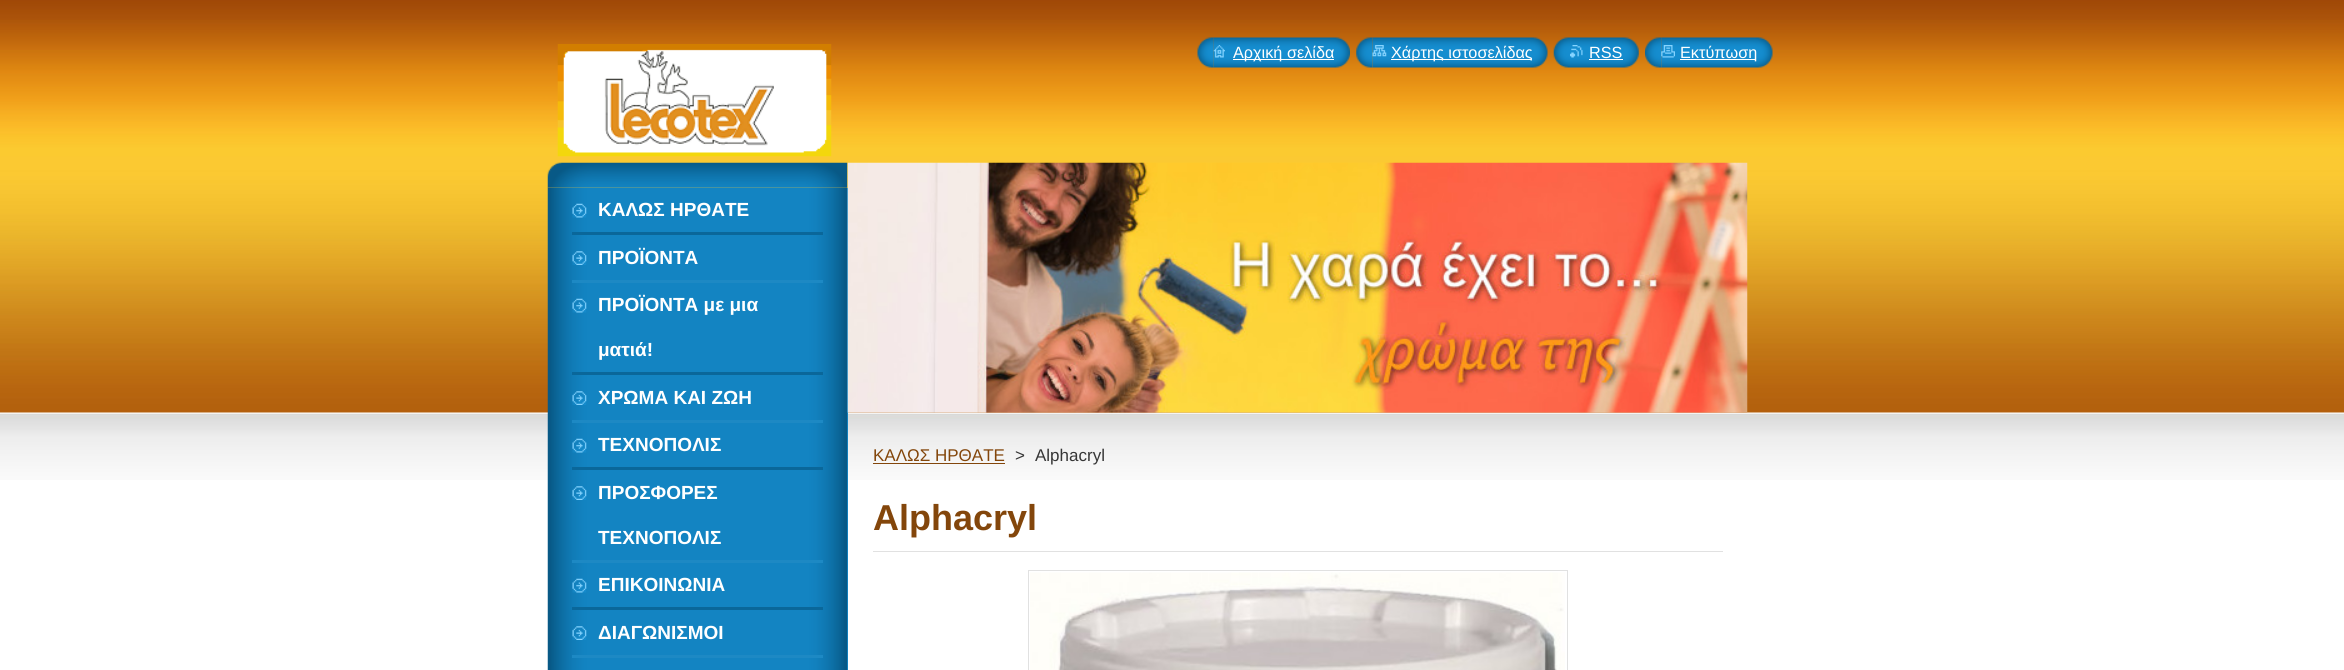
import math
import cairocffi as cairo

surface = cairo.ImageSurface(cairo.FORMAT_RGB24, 2344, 670)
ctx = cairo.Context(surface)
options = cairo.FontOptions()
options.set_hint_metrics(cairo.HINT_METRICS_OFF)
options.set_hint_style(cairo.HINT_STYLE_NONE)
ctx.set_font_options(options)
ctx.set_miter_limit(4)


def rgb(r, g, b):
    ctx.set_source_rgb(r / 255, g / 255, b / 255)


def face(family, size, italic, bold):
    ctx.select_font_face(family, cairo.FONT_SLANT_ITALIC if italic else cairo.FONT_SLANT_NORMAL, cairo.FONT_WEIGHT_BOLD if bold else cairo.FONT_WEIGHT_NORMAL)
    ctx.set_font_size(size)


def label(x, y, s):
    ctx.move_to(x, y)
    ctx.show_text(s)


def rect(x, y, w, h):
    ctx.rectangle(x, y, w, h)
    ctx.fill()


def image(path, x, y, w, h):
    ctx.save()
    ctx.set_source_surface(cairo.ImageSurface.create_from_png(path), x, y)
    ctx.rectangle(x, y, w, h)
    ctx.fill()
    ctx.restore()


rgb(255, 255, 255)
ctx.paint()
image('image0.png', 0, 0, 2344, 480)
image('image1.png', 557, 44, 275, 113)
image('image2.png', 1197, 37, 17, 31)
image('image3.png', 1213, 37, 137, 31)
image('image4.png', 1213, 45, 12, 13)
rgb(255, 255, 255)
rect(1233, 59, 101, 1)
face('Liberation Sans', 16.25, 0, 0)
label(1233, 58, 'Αρχική σελίδα')
image('image5.png', 1356, 37, 17, 31)
image('image6.png', 1372, 37, 176, 31)
image('image7.png', 1372, 45, 15, 12)
rect(1391, 59, 140, 1)
label(1391, 58, 'Χάρτης ιστοσελίδας')
image('image8.png', 1553, 37, 17, 31)
image('image9.png', 1570, 37, 69, 31)
image('image10.png', 1570, 45, 13, 13)
label(1589, 58, 'RSS')
rect(1589, 59, 34, 1)
image('image11.png', 1645, 37, 17, 31)
image('image12.png', 1661, 37, 112, 31)
image('image13.png', 1661, 45, 14, 13)
rect(1680, 59, 76, 1)
label(1680, 58, 'Εκτύπωση')
image('image14.png', 547, 162, 301, 26)
rgb(21, 141, 207)
rect(847, 188, 1, 482)
image('image15.png', 547, 187, 301, 483)
rgb(10, 103, 154)
rect(572, 232, 251, 3)
image('image16.png', 572, 203, 15, 15)
face('Liberation Sans', 19, 0, 1)
rgb(255, 255, 255)
label(598, 216, 'ΚΑΛΩΣ ΗΡΘΑΤΕ')
rgb(29, 137, 196)
rect(572, 280, 251, 3)
image('image17.png', 572, 251, 15, 14)
rgb(255, 255, 255)
label(598, 264, 'ΠΡΟΪΟΝΤΑ')
rgb(10, 103, 154)
rect(572, 372, 251, 3)
image('image16.png', 572, 298, 15, 15)
rgb(255, 255, 255)
label(598, 311, 'ΠΡΟΪΟΝΤΑ με μια')
label(598, 356, 'ματιά!')
rgb(29, 137, 196)
rect(572, 420, 251, 3)
image('image17.png', 572, 391, 15, 14)
rgb(255, 255, 255)
label(598, 404, 'ΧΡΩΜΑ ΚΑΙ ΖΩΗ')
rgb(10, 103, 154)
rect(572, 467, 251, 3)
image('image16.png', 572, 438, 15, 15)
rgb(255, 255, 255)
label(598, 451, 'ΤΕΧΝΟΠΟΛΙΣ')
rgb(29, 137, 196)
rect(572, 560, 251, 3)
image('image17.png', 572, 486, 15, 14)
rgb(255, 255, 255)
label(598, 499, 'ΠΡΟΣΦΟΡΕΣ')
label(598, 544, 'ΤΕΧΝΟΠΟΛΙΣ')
rgb(10, 103, 154)
rect(572, 607, 251, 3)
image('image16.png', 572, 578, 15, 15)
rgb(255, 255, 255)
label(598, 591, 'ΕΠΙΚΟΙΝΩΝΙΑ')
rgb(29, 137, 196)
rect(572, 655, 251, 3)
image('image17.png', 572, 626, 15, 14)
rgb(255, 255, 255)
label(598, 639, 'ΔΙΑΓΩΝΙΣΜΟΙ')
image('image18.png', 847, 162, 901, 251)
face('Liberation Sans', 17, 0, 0)
rgb(131, 70, 11)
label(873, 461, 'ΚΑΛΩΣ ΗΡΘΑΤΕ')
rect(873, 463, 132, 1)
rgb(54, 54, 54)
label(1015, 461, '>')
label(1035, 461, 'Alphacryl')
rgb(225, 225, 225)
rect(873, 551, 850, 1)
face('Liberation Sans', 36, 0, 1)
rgb(131, 70, 11)
label(873, 530, 'Alphacryl')
ctx.rectangle(1028.5, 570.5, 539, 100)
rgb(225, 225, 225)
ctx.set_line_width(1)
ctx.stroke()
image('image19.png', 1030, 572, 535, 98)
surface.write_to_png('render.png')
